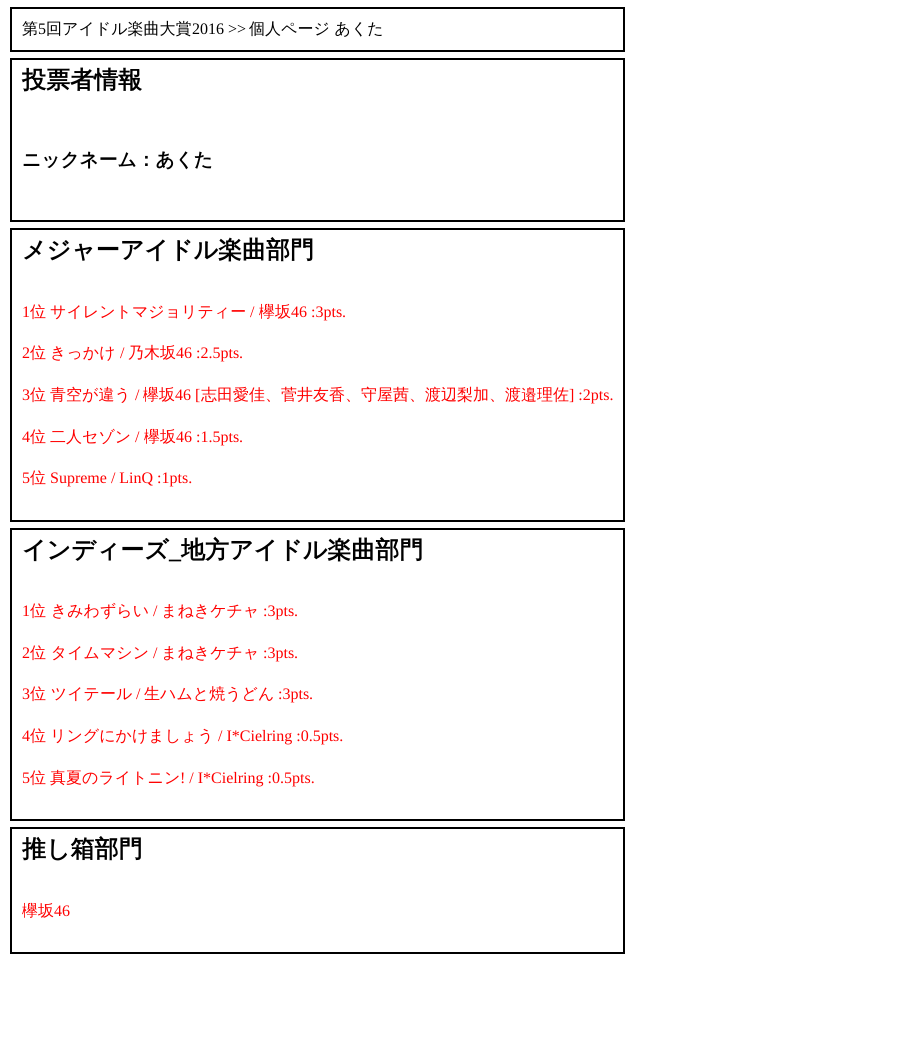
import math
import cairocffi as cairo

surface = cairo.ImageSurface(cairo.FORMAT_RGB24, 919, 1052)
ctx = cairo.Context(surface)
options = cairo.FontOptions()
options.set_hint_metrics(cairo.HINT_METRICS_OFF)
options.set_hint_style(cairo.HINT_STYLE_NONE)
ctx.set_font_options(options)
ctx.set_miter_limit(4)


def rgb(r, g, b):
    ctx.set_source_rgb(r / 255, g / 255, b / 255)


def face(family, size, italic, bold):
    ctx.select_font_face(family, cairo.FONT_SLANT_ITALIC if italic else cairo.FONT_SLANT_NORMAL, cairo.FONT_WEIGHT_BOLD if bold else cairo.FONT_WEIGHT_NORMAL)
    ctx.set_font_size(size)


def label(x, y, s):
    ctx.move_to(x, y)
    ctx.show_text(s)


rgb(255, 255, 255)
ctx.paint()
ctx.rectangle(10.5, 7.5, 614, 44)
rgb(0, 0, 0)
ctx.set_line_width(1)
ctx.stroke()
ctx.rectangle(11.5, 8.5, 612, 42)
ctx.stroke()
face('WenQuanYi Zen Hei Medium', 16, 0, 0)
label(22, 34, '第')
face('Liberation Serif', 16, 0, 0)
label(38, 34, '5')
face('WenQuanYi Zen Hei Medium', 16, 0, 0)
label(46, 34, '回アイドル楽曲大賞')
face('Liberation Serif', 16, 0, 0)
label(192, 34, '2016 >>')
face('WenQuanYi Zen Hei Medium', 16, 0, 0)
label(249, 34, '個人ページ あくた')
ctx.rectangle(10.5, 58.5, 614, 163)
ctx.stroke()
ctx.rectangle(11.5, 59.5, 612, 161)
ctx.stroke()
face('WenQuanYi Zen Hei', 24, 0, 1)
label(22, 88, '投票者情報')
face('WenQuanYi Zen Hei', 18.75, 0, 1)
label(22, 166, 'ニックネーム：あくた')
ctx.rectangle(10.5, 228.5, 614, 293)
ctx.stroke()
ctx.rectangle(11.5, 229.5, 612, 291)
ctx.stroke()
face('WenQuanYi Zen Hei', 24, 0, 1)
label(22, 258, 'メジャーアイドル楽曲部門')
face('Liberation Serif', 16, 0, 0)
rgb(255, 0, 0)
label(22, 317, '1')
face('WenQuanYi Zen Hei Medium', 16, 0, 0)
label(30, 317, '位')
label(50, 317, 'サイレントマジョリティー')
face('Liberation Serif', 16, 0, 0)
label(250, 317, '/')
face('WenQuanYi Zen Hei Medium', 16, 0, 0)
label(259, 317, '欅坂')
face('Liberation Serif', 16, 0, 0)
label(291, 317, '46 :3pts.')
label(22, 358, '2')
face('WenQuanYi Zen Hei Medium', 16, 0, 0)
label(30, 358, '位')
label(50, 358, 'きっかけ')
face('Liberation Serif', 16, 0, 0)
label(120, 358, '/')
face('WenQuanYi Zen Hei Medium', 16, 0, 0)
label(128, 358, '乃木坂')
face('Liberation Serif', 16, 0, 0)
label(176, 358, '46 :2.5pts.')
label(22, 400, '3')
face('WenQuanYi Zen Hei Medium', 16, 0, 0)
label(30, 400, '位')
label(50, 400, '青空が違う')
face('Liberation Serif', 16, 0, 0)
label(135, 400, '/')
face('WenQuanYi Zen Hei Medium', 16, 0, 0)
label(143, 400, '欅坂')
face('Liberation Serif', 16, 0, 0)
label(175, 400, '46 [')
face('WenQuanYi Zen Hei Medium', 16, 0, 0)
label(201, 400, '志田愛佳、菅井友香、守屋茜、渡辺梨加、渡邉理佐')
face('Liberation Serif', 16, 0, 0)
label(569, 400, '] :2pts.')
label(22, 442, '4')
face('WenQuanYi Zen Hei Medium', 16, 0, 0)
label(30, 442, '位')
label(50, 442, '二人セゾン')
face('Liberation Serif', 16, 0, 0)
label(135, 442, '/')
face('WenQuanYi Zen Hei Medium', 16, 0, 0)
label(144, 442, '欅坂')
face('Liberation Serif', 16, 0, 0)
label(176, 442, '46 :1.5pts.')
label(22, 483, '5')
face('WenQuanYi Zen Hei Medium', 16, 0, 0)
label(30, 483, '位')
face('Liberation Serif', 16, 0, 0)
label(50, 483, 'Supreme / LinQ :1pts.')
ctx.rectangle(10.5, 528.5, 614, 292)
rgb(0, 0, 0)
ctx.stroke()
ctx.rectangle(11.5, 529.5, 612, 290)
ctx.stroke()
face('WenQuanYi Zen Hei', 24, 0, 1)
label(22, 558, 'インディーズ')
face('Liberation Serif', 24, 0, 1)
label(169, 558, '_')
face('WenQuanYi Zen Hei', 24, 0, 1)
label(181, 558, '地方アイドル楽曲部門')
face('Liberation Serif', 16, 0, 0)
rgb(255, 0, 0)
label(22, 616, '1')
face('WenQuanYi Zen Hei Medium', 16, 0, 0)
label(30, 616, '位 きみわずらい')
face('Liberation Serif', 16, 0, 0)
label(153, 616, '/')
face('WenQuanYi Zen Hei Medium', 16, 0, 0)
label(161, 616, 'まねきケチャ')
face('Liberation Serif', 16, 0, 0)
label(263, 616, ':3pts.')
label(22, 658, '2')
face('WenQuanYi Zen Hei Medium', 16, 0, 0)
label(30, 658, '位 タイムマシン')
face('Liberation Serif', 16, 0, 0)
label(153, 658, '/')
face('WenQuanYi Zen Hei Medium', 16, 0, 0)
label(161, 658, 'まねきケチャ')
face('Liberation Serif', 16, 0, 0)
label(263, 658, ':3pts.')
label(22, 699, '3')
face('WenQuanYi Zen Hei Medium', 16, 0, 0)
label(30, 699, '位 ツイテール')
face('Liberation Serif', 16, 0, 0)
label(136, 699, '/')
face('WenQuanYi Zen Hei Medium', 16, 0, 0)
label(144, 699, '生ハムと焼うどん')
face('Liberation Serif', 16, 0, 0)
label(278, 699, ':3pts.')
label(22, 741, '4')
face('WenQuanYi Zen Hei Medium', 16, 0, 0)
label(30, 741, '位')
label(50, 741, 'リングにかけましょう')
face('Liberation Serif', 16, 0, 0)
label(218, 741, '/ I*Cielring :0.5pts.')
label(22, 783, '5')
face('WenQuanYi Zen Hei Medium', 16, 0, 0)
label(30, 783, '位')
label(50, 783, '真夏のライトニン')
face('Liberation Serif', 16, 0, 0)
label(180, 783, '! / I*Cielring :0.5pts.')
ctx.rectangle(10.5, 827.5, 614, 126)
rgb(0, 0, 0)
ctx.stroke()
ctx.rectangle(11.5, 828.5, 612, 124)
ctx.stroke()
face('WenQuanYi Zen Hei', 24, 0, 1)
label(22, 857, '推し箱部門')
face('WenQuanYi Zen Hei Medium', 16, 0, 0)
rgb(255, 0, 0)
label(22, 916, '欅坂')
face('Liberation Serif', 16, 0, 0)
label(54, 916, '46')
surface.write_to_png('render.png')
